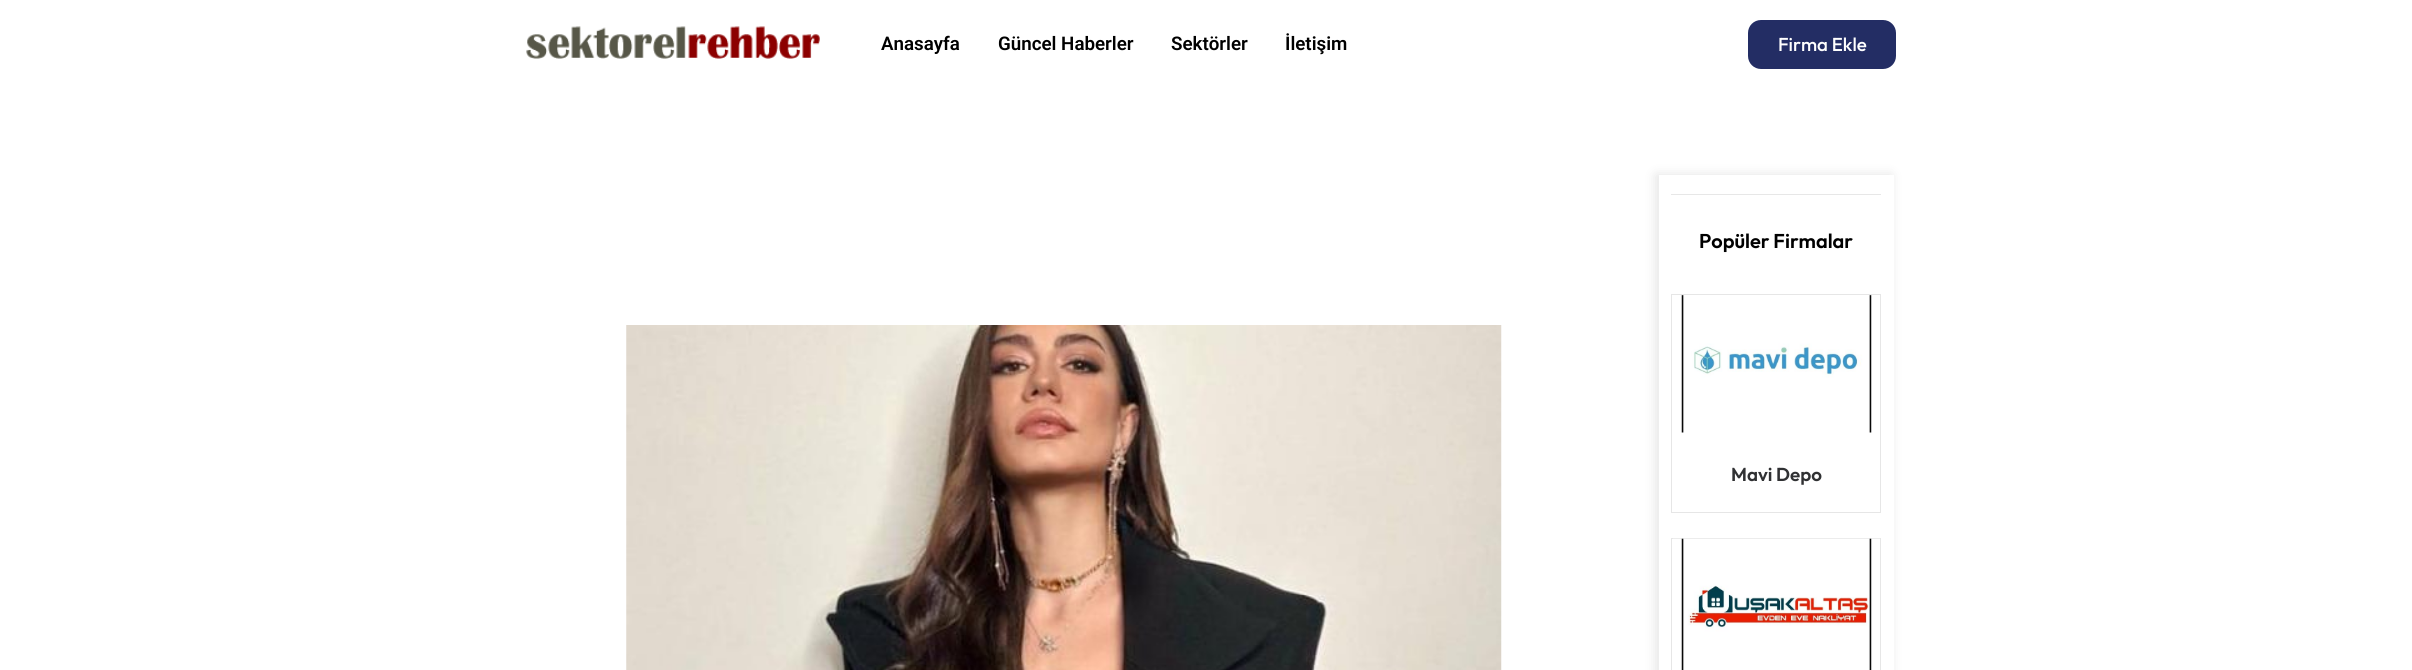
import math
import cairocffi as cairo

surface = cairo.ImageSurface(cairo.FORMAT_RGB24, 2412, 670)
ctx = cairo.Context(surface)
options = cairo.FontOptions()
options.set_hint_metrics(cairo.HINT_METRICS_OFF)
options.set_hint_style(cairo.HINT_STYLE_NONE)
ctx.set_font_options(options)
ctx.set_miter_limit(4)


def rgb(r, g, b):
    ctx.set_source_rgb(r / 255, g / 255, b / 255)


def face(family, size, italic, bold):
    ctx.select_font_face(family, cairo.FONT_SLANT_ITALIC if italic else cairo.FONT_SLANT_NORMAL, cairo.FONT_WEIGHT_BOLD if bold else cairo.FONT_WEIGHT_NORMAL)
    ctx.set_font_size(size)


def label(x, y, s):
    ctx.move_to(x, y)
    ctx.show_text(s)


def rect(x, y, w, h):
    ctx.rectangle(x, y, w, h)
    ctx.fill()


def rrect(x, y, w, h, r):
    ctx.new_sub_path()
    for i, (u, v) in enumerate([(x + w - r, y + h - r), (x + r, y + h - r), (x + r, y + r), (x + w - r, y + r)]):
        ctx.arc(u, v, r, i * math.pi / 2, (i + 1) * math.pi / 2)
    ctx.close_path()


def soft_shadow(x, y, w, h, r, blur, alpha):
    ctx.push_group_with_content(cairo.CONTENT_ALPHA)
    ctx.set_operator(cairo.OPERATOR_SOURCE)
    for i in range(15, -16, -2):
        e = blur * i / 6
        if min(w, h) + 2 * e > 0:
            ctx.set_source_rgba(0, 0, 0, alpha * math.erfc((i - 1) / 8.5) / 2)
            rrect(x - e, y - e, w + 2 * e, h + 2 * e, max(0, min(r + e + blur * .6, min(w, h) / 2 + e)))
            ctx.fill()
    ctx.mask(ctx.pop_group())


def image(path, x, y, w, h):
    ctx.save()
    ctx.set_source_surface(cairo.ImageSurface.create_from_png(path), x, y)
    ctx.rectangle(x, y, w, h)
    ctx.fill()
    ctx.restore()


rgb(255, 255, 255)
ctx.paint()
image('image0.png', 526, 26, 294, 33)
face('Roboto SemiBold', 18.75, 0, 0)
rgb(0, 0, 0)
label(881, 50, 'Anasayfa')
label(998, 50, 'Güncel Haberler')
label(1171, 50, 'Sektörler')
label(1285, 50, 'İletişim')
rgb(35, 45, 100)
rrect(1748, 20, 148, 49, 13)
ctx.fill()
face('Outfit Medium', 18.75, 0, 0)
rgb(255, 255, 255)
label(1778, 51, 'Firma Ekle')
image('image1.png', 626, 325, 876, 345)
ctx.save()
ctx.set_fill_rule(cairo.FILL_RULE_EVEN_ODD)
ctx.new_path()
ctx.move_to(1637, 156)
ctx.line_to(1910, 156)
ctx.line_to(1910, 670)
ctx.line_to(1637, 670)
ctx.close_path()
ctx.move_to(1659, 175)
ctx.line_to(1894, 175)
ctx.line_to(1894, 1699)
ctx.line_to(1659, 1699)
ctx.close_path()
ctx.clip()
rgb(0, 0, 0)
soft_shadow(1656, 175, 235, 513, 0, 6, 0.11)
ctx.restore()
rgb(231, 231, 231)
rect(1671, 194, 210, 1)
face('Outfit SemiBold', 20, 0, 0)
rgb(0, 0, 0)
label(1699, 248, 'Popüler Firmalar')
ctx.rectangle(1671.5, 294.5, 209, 218)
rgb(230, 230, 230)
ctx.set_line_width(1)
ctx.stroke()
image('image2.png', 1681, 295, 191, 138)
face('Outfit SemiBold', 18.75, 0, 0)
rgb(48, 49, 51)
label(1731, 481, 'Mavi Depo')
ctx.rectangle(1671.5, 538.5, 209, 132)
rgb(230, 230, 230)
ctx.stroke()
image('image3.png', 1673, 538, 207, 132)
surface.write_to_png('render.png')
